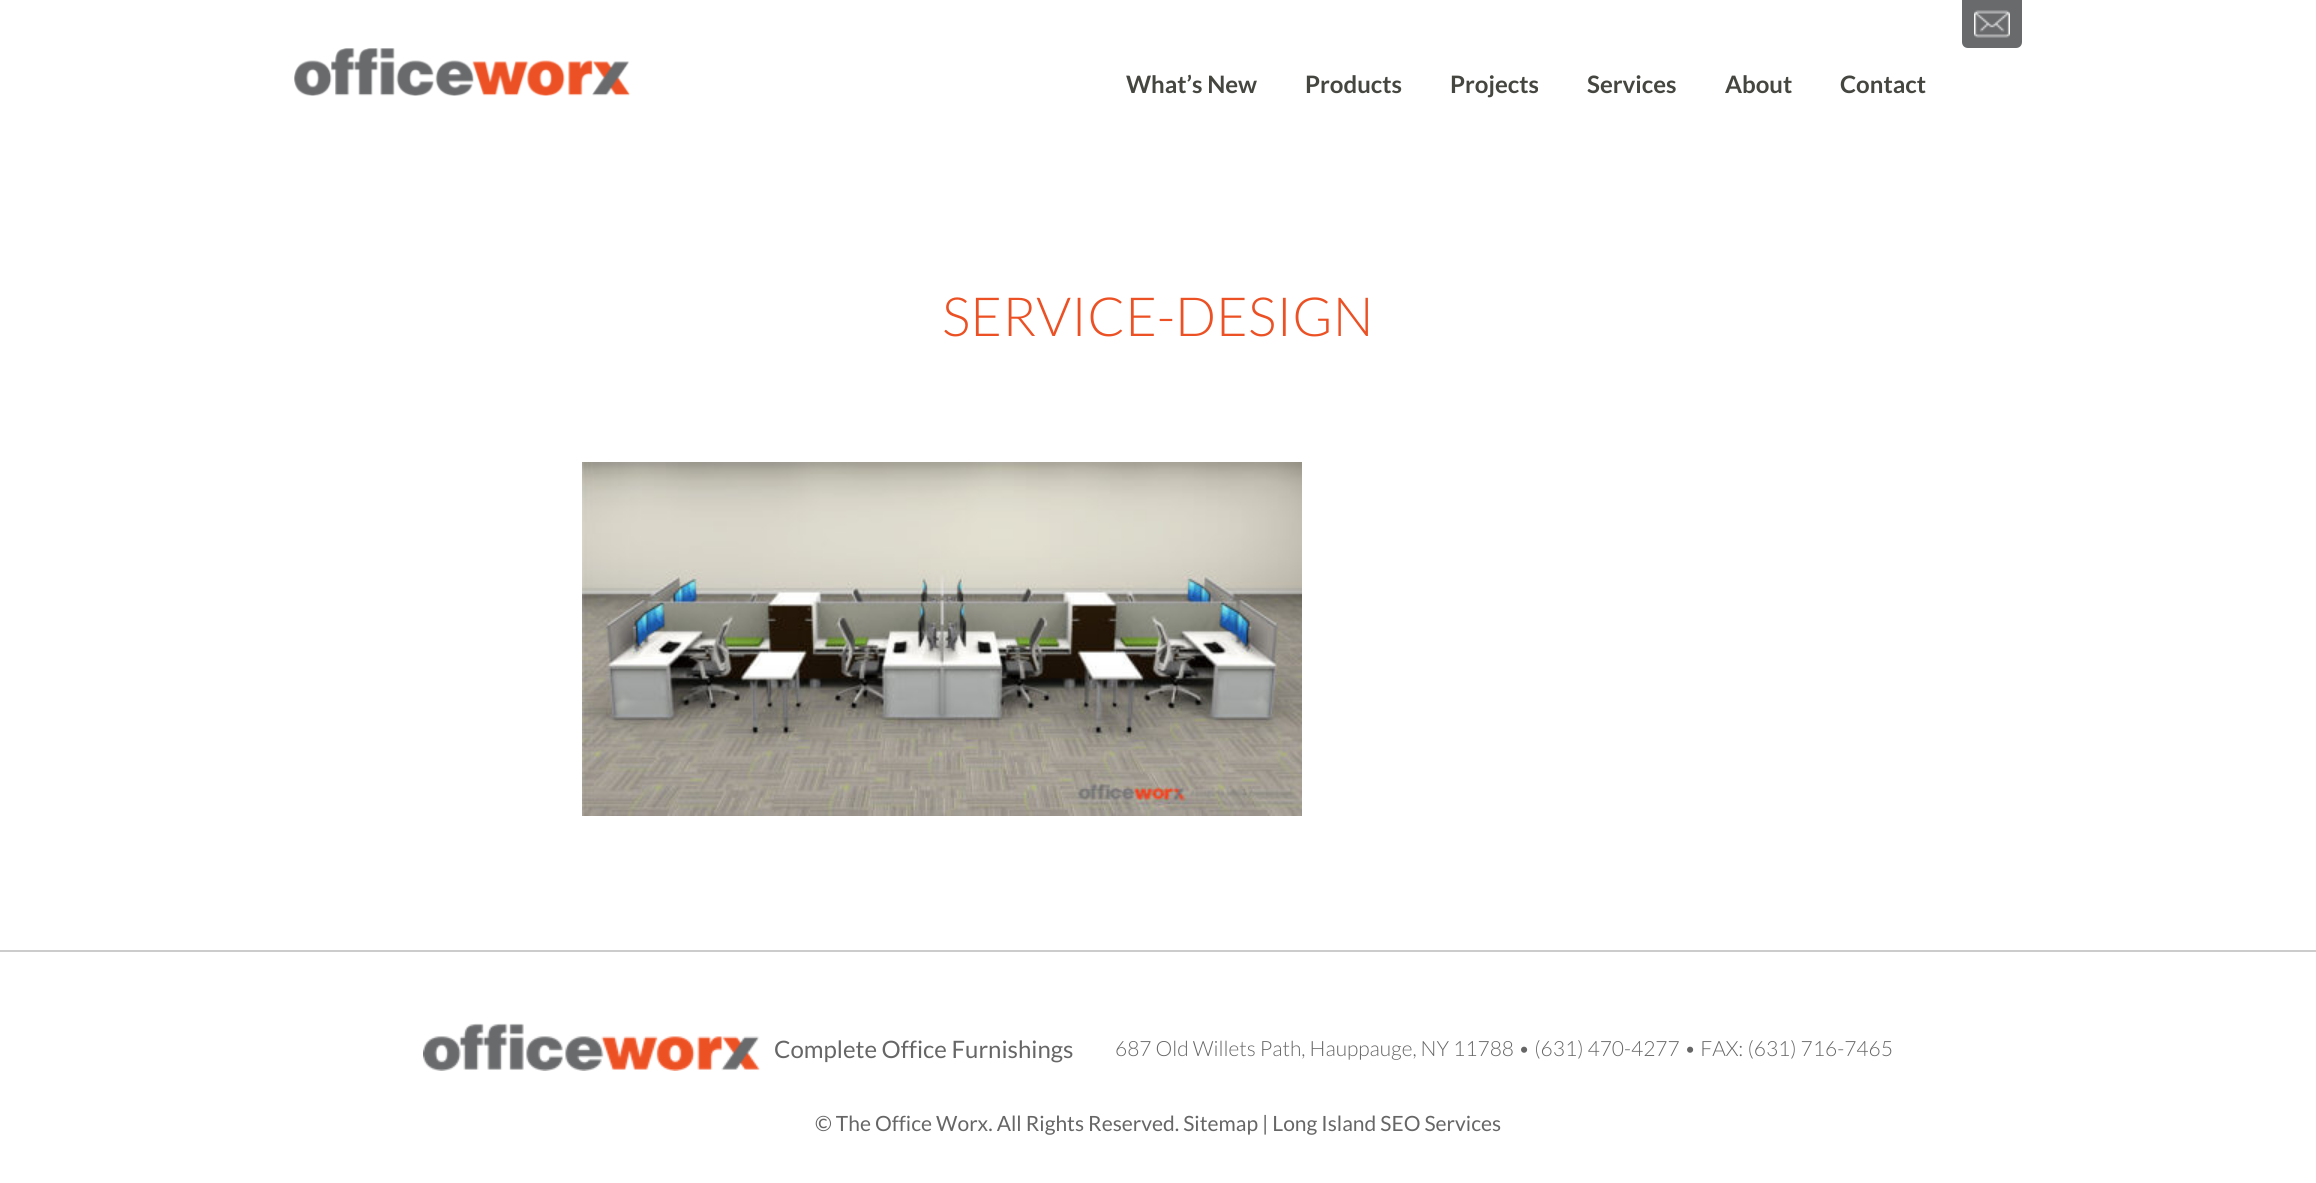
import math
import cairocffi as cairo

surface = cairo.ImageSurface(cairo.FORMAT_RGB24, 2316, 1183)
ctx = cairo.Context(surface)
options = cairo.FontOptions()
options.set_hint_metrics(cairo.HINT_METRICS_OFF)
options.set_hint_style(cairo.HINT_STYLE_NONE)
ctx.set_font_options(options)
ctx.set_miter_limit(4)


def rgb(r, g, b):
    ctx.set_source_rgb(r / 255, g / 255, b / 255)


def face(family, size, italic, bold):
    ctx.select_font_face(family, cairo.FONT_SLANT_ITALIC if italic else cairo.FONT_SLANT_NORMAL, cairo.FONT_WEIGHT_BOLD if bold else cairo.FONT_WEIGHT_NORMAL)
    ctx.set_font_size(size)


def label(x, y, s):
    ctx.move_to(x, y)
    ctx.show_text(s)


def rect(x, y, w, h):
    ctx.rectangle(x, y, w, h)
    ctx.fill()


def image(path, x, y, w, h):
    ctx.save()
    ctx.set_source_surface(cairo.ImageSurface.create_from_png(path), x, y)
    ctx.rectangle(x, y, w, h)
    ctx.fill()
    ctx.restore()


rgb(255, 255, 255)
ctx.paint()
rgb(105, 106, 108)
ctx.new_path()
ctx.move_to(1962, 0)
ctx.line_to(2022, 0)
ctx.line_to(2022, 42)
ctx.curve_to(2022, 45.5, 2019.5, 48, 2016, 48)
ctx.line_to(1968, 48)
ctx.curve_to(1964.5, 48, 1962, 45.5, 1962, 42)
ctx.close_path()
ctx.fill()
image('image0.png', 1974, 10, 36, 28)
image('image1.png', 294, 48, 336, 48)
face('Lato', 24, 0, 1)
rgb(69, 70, 64)
label(1126, 93, 'What’s New')
label(1305, 93, 'Products')
label(1450, 93, 'Projects')
label(1587, 93, 'Services')
label(1725, 93, 'About')
label(1840, 93, 'Contact')
face('Lato Light', 54, 0, 0)
rgb(235, 81, 36)
label(942, 336, 'SERVICE-DESIGN')
image('image2.png', 582, 462, 720, 354)
rgb(204, 204, 204)
rect(0, 950, 2316, 2)
image('image3.png', 423, 1023, 337, 48)
face('Lato', 24, 0, 0)
rgb(102, 102, 102)
label(774, 1058, 'Complete Office Furnishings')
face('Lato Light', 21, 0, 0)
label(1115, 1056, '687 Old Willets Path, Hauppauge, NY 11788 • (631) 470-4277')
label(1684, 1056, '• FAX: (631) 716-7465')
face('Lato', 21, 0, 0)
label(815, 1131, '© The Office Worx. All Rights Reserved. Sitemap')
label(1262, 1131, '| Long Island SEO Services')
surface.write_to_png('render.png')
